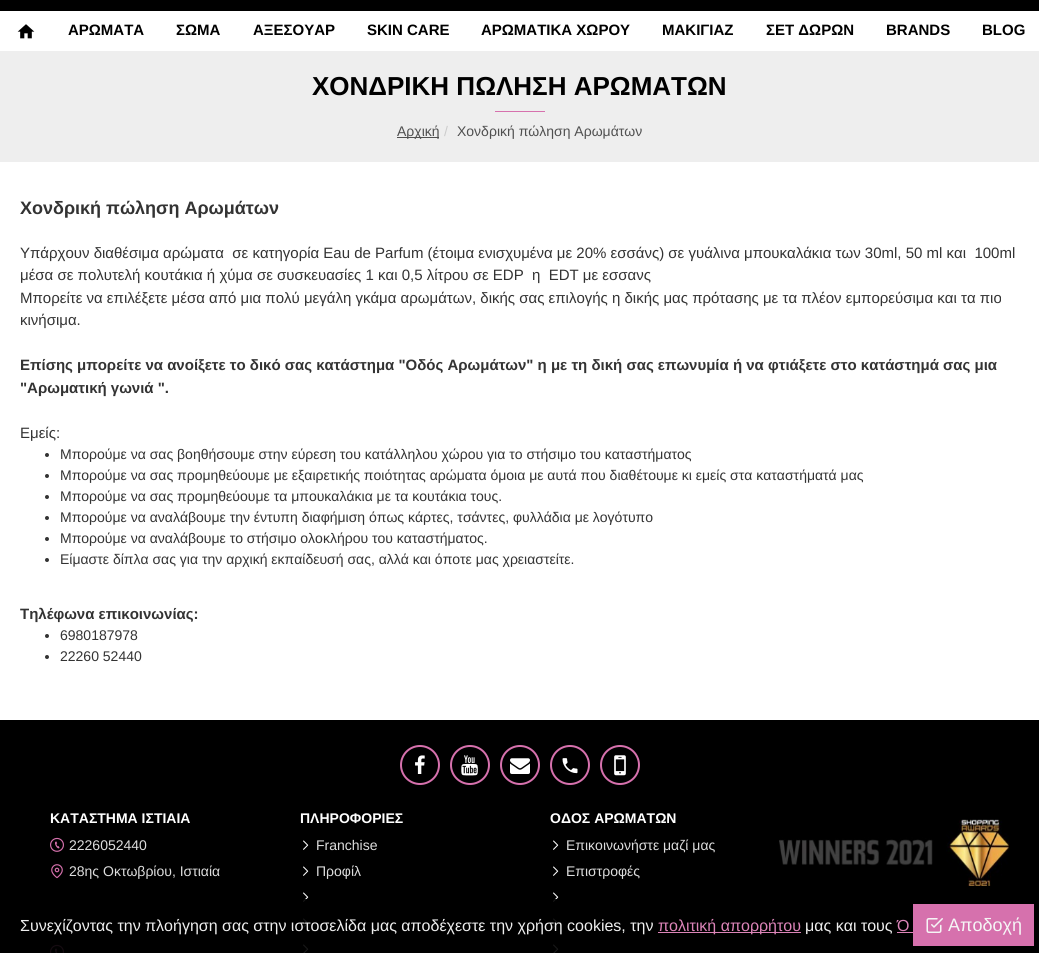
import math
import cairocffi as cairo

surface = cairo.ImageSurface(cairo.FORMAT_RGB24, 1039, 953)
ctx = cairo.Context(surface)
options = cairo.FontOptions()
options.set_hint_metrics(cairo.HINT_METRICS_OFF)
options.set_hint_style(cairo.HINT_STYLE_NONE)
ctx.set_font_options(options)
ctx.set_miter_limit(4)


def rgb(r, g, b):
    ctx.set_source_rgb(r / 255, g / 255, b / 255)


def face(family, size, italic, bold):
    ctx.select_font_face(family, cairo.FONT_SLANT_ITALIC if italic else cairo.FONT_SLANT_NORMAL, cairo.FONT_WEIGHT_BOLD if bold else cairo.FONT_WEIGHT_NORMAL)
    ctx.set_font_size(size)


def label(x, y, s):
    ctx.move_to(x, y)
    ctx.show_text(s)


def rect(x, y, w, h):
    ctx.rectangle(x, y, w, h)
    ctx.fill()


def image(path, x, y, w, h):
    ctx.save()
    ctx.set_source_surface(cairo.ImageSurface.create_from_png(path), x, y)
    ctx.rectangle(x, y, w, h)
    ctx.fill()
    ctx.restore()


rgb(255, 255, 255)
ctx.paint()
rgb(0, 0, 0)
rect(0, 0, 1039, 11)
image('image0.png', 17, 24, 18, 15)
face('Arimo', 15, 0, 1)
label(68, 35, 'ΑΡΩΜΑΤΑ')
label(176, 35, 'ΣΩΜΑ')
label(253, 35, 'ΑΞΕΣΟΥΑΡ')
label(367, 35, 'SKIN CARE')
label(481, 35, 'ΑΡΩΜΑΤΙΚΑ ΧΩΡΟΥ')
label(662, 35, 'ΜΑΚΙΓΙΑΖ')
label(766, 35, 'ΣΕΤ ΔΩΡΩΝ')
label(886, 35, 'BRANDS')
label(982, 35, 'BLOG')
rgb(238, 238, 238)
rect(0, 51, 1039, 111)
face('Arimo', 26, 0, 1)
rgb(0, 0, 0)
label(312, 95, 'ΧΟΝΔΡΙΚΗ ΠΩΛΗΣΗ ΑΡΩΜΑΤΩΝ')
rgb(214, 113, 173)
rect(495, 111, 50, 1)
rgb(80, 80, 80)
rect(397, 137, 42, 1)
face('Arimo', 14, 0, 0)
label(397, 136, 'Αρχική')
rgb(204, 204, 204)
label(444, 136, '/')
rgb(80, 80, 80)
label(457, 136, 'Χονδρική πώληση Αρωμάτων')
face('Arimo', 18, 0, 1)
rgb(51, 51, 51)
label(20, 214, 'Χονδρική πώληση Αρωμάτων')
face('Arimo', 15, 0, 0)
label(20, 258, 'Υπάρχουν διαθέσιμα αρώματα  σε κατηγορία Εau de Parfum (έτοιμα ενισχυμένα με 20% εσσάνς) σε γυάλινα μπουκαλάκια των 30ml, 50 ml και  100ml')
label(20, 280, 'μέσα σε πολυτελή κουτάκια ή χύμα σε συσκευασίες 1 και 0,5 λίτρου σε EDP  η  EDT με εσσανς')
label(20, 303, 'Μπορείτε να επιλέξετε μέσα από μια πολύ μεγάλη γκάμα αρωμάτων, δικής σας επιλογής η δικής μας πρότασης με τα πλέον εμπορεύσιμα και τα πιο')
label(20, 325, 'κινήσιμα.')
face('Arimo', 15, 0, 1)
label(20, 370, 'Επίσης μπορείτε να ανοίξετε το δικό σας κατάστημα "Οδός Αρωμάτων" η με τη δική σας επωνυμία ή να φτιάξετε στο κατάστημά σας μια')
label(20, 393, '"Αρωματική γωνιά ".')
face('Arimo', 15, 0, 0)
label(20, 438, 'Εμείς:')
ctx.new_path()
ctx.arc(47, 455, 2, 0, 2 * math.pi)
ctx.fill()
face('Arimo', 14, 0, 0)
label(60, 459, 'Μπορούμε να σας βοηθήσουμε στην εύρεση του κατάλληλου χώρου για το στήσιμο του καταστήματος')
ctx.new_path()
ctx.arc(47, 476, 2, 0, 2 * math.pi)
ctx.fill()
label(60, 480, 'Μπορούμε να σας προμηθεύουμε με εξαιρετικής ποιότητας αρώματα όμοια με αυτά που διαθέτουμε κι εμείς στα καταστήματά μας')
ctx.new_path()
ctx.arc(47, 497, 2, 0, 2 * math.pi)
ctx.fill()
label(60, 501, 'Μπορούμε να σας προμηθεύουμε τα μπουκαλάκια με τα κουτάκια τους.')
ctx.new_path()
ctx.arc(47, 518, 2, 0, 2 * math.pi)
ctx.fill()
label(60, 522, 'Μπορούμε να αναλάβουμε την έντυπη διαφήμιση όπως κάρτες, τσάντες, φυλλάδια με λογότυπο')
ctx.new_path()
ctx.arc(47, 539, 2, 0, 2 * math.pi)
ctx.fill()
label(60, 543, 'Μπορούμε να αναλάβουμε το στήσιμο ολοκλήρου του καταστήματος.')
ctx.new_path()
ctx.arc(47, 560, 2, 0, 2 * math.pi)
ctx.fill()
label(60, 564, 'Είμαστε δίπλα σας για την αρχική εκπαίδευσή σας, αλλά και όποτε μας χρειαστείτε.')
face('Arimo', 15, 0, 1)
label(20, 619, 'Τηλέφωνα επικοινωνίας:')
ctx.new_path()
ctx.arc(47, 636, 2, 0, 2 * math.pi)
ctx.fill()
face('Arimo', 14, 0, 0)
label(60, 640, '6980187978')
ctx.new_path()
ctx.arc(47, 657, 2, 0, 2 * math.pi)
ctx.fill()
label(60, 661, '22260 52440')
rgb(0, 0, 0)
rect(0, 720, 1039, 233)
ctx.new_path()
ctx.arc(420, 765, 19, 0, 2 * math.pi)
rgb(214, 113, 173)
ctx.stroke()
image('image1.png', 415, 755, 10, 19)
ctx.arc(470, 765, 19, 0, 2 * math.pi)
ctx.stroke()
image('image2.png', 461, 755, 17, 21)
ctx.arc(520, 765, 19, 0, 2 * math.pi)
ctx.stroke()
image('image3.png', 510, 758, 20, 16)
ctx.arc(570, 765, 19, 0, 2 * math.pi)
ctx.stroke()
image('image4.png', 562, 758, 16, 16)
ctx.arc(620, 765, 19, 0, 2 * math.pi)
ctx.stroke()
image('image5.png', 614, 755, 12, 21)
face('Arimo', 14, 0, 1)
rgb(255, 255, 255)
label(50, 823, 'ΚΑΤΑΣΤΗΜΑ ΙΣΤΙΑΙΑ')
image('image6.png', 50, 837, 14, 15)
face('Arimo', 14, 0, 0)
rgb(221, 221, 221)
label(69, 850, '2226052440')
image('image7.png', 51, 864, 12, 15)
label(69, 876, '28ης Οκτωβρίου, Ιστιαία')
image('image8.png', 50, 944, 14, 9)
face('Arimo', 14, 0, 1)
rgb(255, 255, 255)
label(300, 823, 'ΠΛΗΡΟΦΟΡΙΕΣ')
image('image9.png', 303, 840, 6, 10)
face('Arimo', 14, 0, 0)
rgb(221, 221, 221)
label(316, 850, 'Franchise')
image('image9.png', 303, 866, 6, 10)
label(316, 876, 'Προφίλ')
image('image9.png', 303, 892, 6, 10)
image('image9.png', 303, 918, 6, 10)
image('image10.png', 303, 944, 6, 9)
face('Arimo', 14, 0, 1)
rgb(255, 255, 255)
label(550, 823, 'ΟΔΟΣ ΑΡΩΜΑΤΩΝ')
image('image9.png', 553, 840, 6, 10)
face('Arimo', 14, 0, 0)
rgb(221, 221, 221)
label(566, 850, 'Επικοινωνήστε μαζί μας')
image('image9.png', 553, 866, 6, 10)
label(566, 876, 'Επιστροφές')
image('image9.png', 553, 892, 6, 10)
image('image9.png', 553, 918, 6, 10)
image('image10.png', 553, 944, 6, 9)
image('image11.png', 779, 819, 230, 67)
ctx.set_source_rgba(0, 0, 0, 0.9)
rect(50, 899, 509, 54)
face('Arimo', 16, 0, 0)
rgb(238, 238, 238)
label(20, 931, 'Συνεχίζοντας την πλοήγηση σας στην ιστοσελίδα μας αποδέχεστε την χρήση cookies, την')
rgb(220, 132, 184)
rect(658, 932, 143, 1)
label(658, 931, 'πολιτική απορρήτου')
rgb(238, 238, 238)
label(805, 931, 'μας και τους')
rgb(220, 132, 184)
label(897, 931, 'Ό')
rect(897, 932, 16, 1)
rgb(214, 113, 173)
rect(913, 904, 121, 42)
image('image12.png', 926, 918, 17, 15)
face('Arimo', 18, 0, 0)
rgb(245, 245, 245)
label(948, 931, 'Αποδοχή')
surface.write_to_png('render.png')
